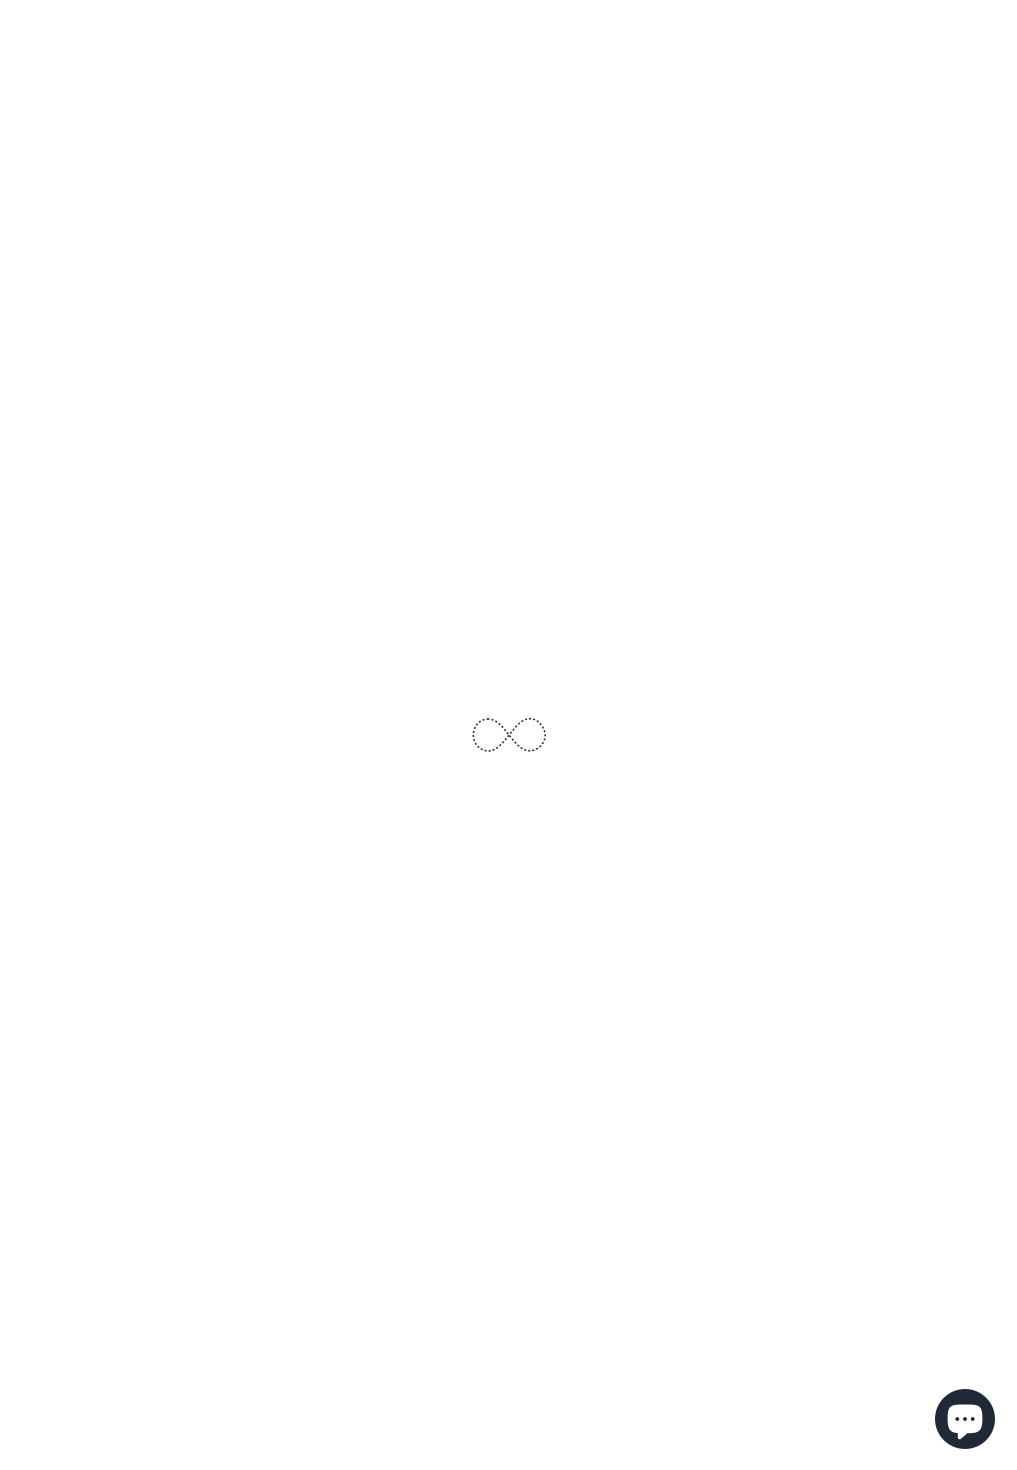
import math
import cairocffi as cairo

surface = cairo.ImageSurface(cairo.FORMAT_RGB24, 1017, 1470)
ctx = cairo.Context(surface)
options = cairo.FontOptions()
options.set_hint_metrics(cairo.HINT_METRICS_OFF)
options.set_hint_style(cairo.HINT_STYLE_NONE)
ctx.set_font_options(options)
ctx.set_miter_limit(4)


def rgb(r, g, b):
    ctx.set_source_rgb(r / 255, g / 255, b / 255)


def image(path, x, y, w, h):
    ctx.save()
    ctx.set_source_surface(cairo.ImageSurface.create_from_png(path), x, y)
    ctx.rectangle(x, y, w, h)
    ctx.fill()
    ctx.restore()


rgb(255, 255, 255)
ctx.paint()
ctx.new_path()
ctx.move_to(488.5, 719)
ctx.curve_to(470.5, 719, 467.5, 746, 485, 750.5)
ctx.curve_to(506, 756, 515, 709, 536.5, 720.5)
ctx.curve_to(540.5, 723, 544, 728, 545, 733)
ctx.curve_to(547, 744, 534.5, 754.5, 524, 749.5)
ctx.curve_to(511.5, 744, 502.5, 719, 488.5, 719)
ctx.close_path()
rgb(51, 51, 51)
ctx.set_line_width(1.6)
ctx.set_dash([2.05, 2.05])
ctx.stroke()
rgb(32, 42, 54)
ctx.arc(965, 1419, 30, 0, 2 * math.pi)
ctx.fill()
image('image0.png', 947, 1404, 36, 36)
surface.write_to_png('render.png')
